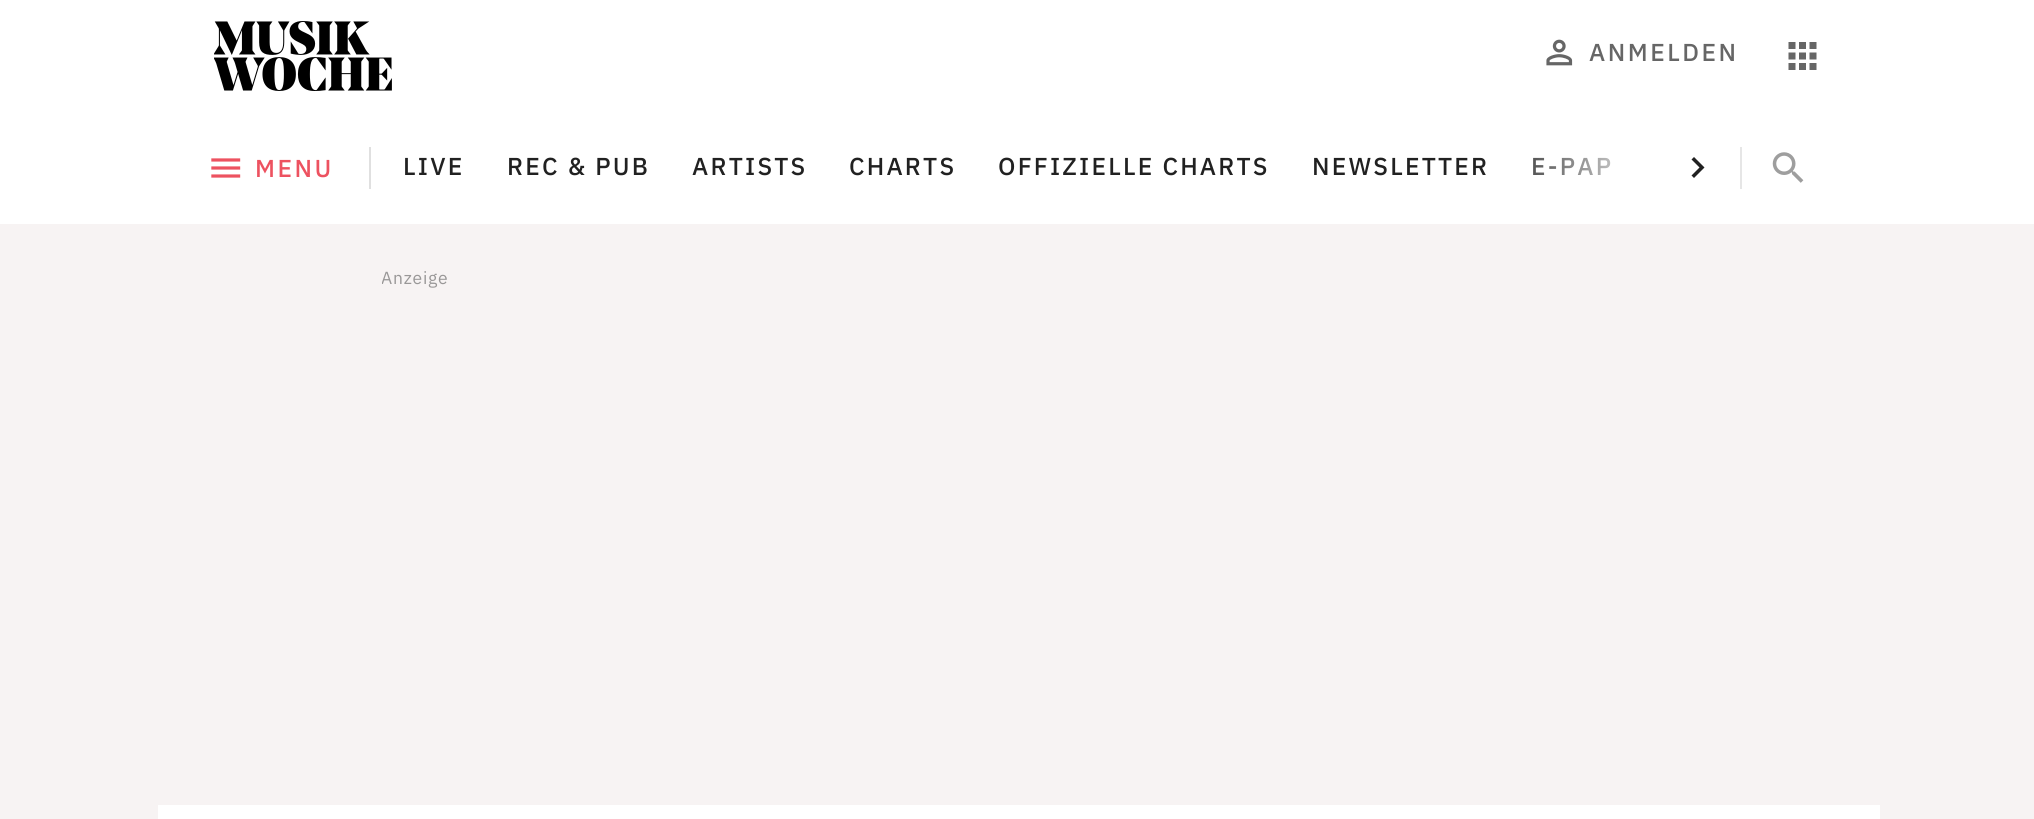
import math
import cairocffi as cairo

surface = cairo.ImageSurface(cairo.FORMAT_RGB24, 2034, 819)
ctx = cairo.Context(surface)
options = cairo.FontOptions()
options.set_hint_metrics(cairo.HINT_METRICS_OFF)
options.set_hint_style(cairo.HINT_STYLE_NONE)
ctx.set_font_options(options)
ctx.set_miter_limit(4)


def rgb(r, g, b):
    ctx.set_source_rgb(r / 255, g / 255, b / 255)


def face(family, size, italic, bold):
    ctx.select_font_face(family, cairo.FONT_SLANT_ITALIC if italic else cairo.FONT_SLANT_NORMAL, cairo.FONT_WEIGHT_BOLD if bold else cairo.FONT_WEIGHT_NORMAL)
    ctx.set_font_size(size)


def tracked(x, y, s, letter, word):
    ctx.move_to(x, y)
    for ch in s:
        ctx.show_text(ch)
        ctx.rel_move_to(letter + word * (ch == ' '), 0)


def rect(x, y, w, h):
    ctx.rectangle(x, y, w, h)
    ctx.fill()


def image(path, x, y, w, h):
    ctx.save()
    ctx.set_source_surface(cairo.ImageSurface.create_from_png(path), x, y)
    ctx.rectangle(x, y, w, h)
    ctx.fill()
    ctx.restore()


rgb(247, 243, 243)
ctx.paint()
rgb(255, 255, 255)
rect(0, 0, 2034, 224)
image('image0.png', 214, 21, 178, 70)
image('image1.png', 1546, 39, 27, 27)
face('IBM Plex Sans Medium', 24.5, 0, 0)
rgb(102, 102, 102)
tracked(1589, 61, 'ANMELDEN', 2.5, 0)
image('image2.png', 1788, 42, 29, 28)
image('image3.png', 211, 158, 30, 20)
rgb(237, 82, 96)
tracked(255, 177, 'MENU', 2.5, 0)
rgb(224, 224, 224)
rect(369, 147, 2, 42)
rgb(33, 33, 33)
tracked(403, 175, 'LIVE', 2.2, 0)
tracked(507, 175, 'REC & PUB', 2.2, 0)
tracked(692, 175, 'ARTISTS', 2.2, 0)
tracked(849, 175, 'CHARTS', 2.2, 0)
tracked(998, 175, 'OFFIZIELLE CHARTS', 2.2, 0)
tracked(1312, 175, 'NEWSLETTER', 2.2, 0)
tracked(1531, 175, 'E-PAP', 2.2, 0)
gradient = cairo.LinearGradient(1491, 168, 1663, 168)
gradient.add_color_stop_rgba(0, 1, 1, 1, 0)
gradient.add_color_stop_rgba(1, 1, 1, 1, 1)
ctx.set_source(gradient)
rect(1533, 157, 78, 18)
rgb(33, 33, 33)
ctx.new_path()
ctx.move_to(1691.5, 175.5)
ctx.line_to(1699.5, 167.5)
ctx.line_to(1691.5, 159.5)
ctx.line_to(1694, 157)
ctx.line_to(1704.5, 167.5)
ctx.line_to(1694, 178)
ctx.close_path()
ctx.fill()
rgb(230, 230, 230)
rect(1740, 147, 2, 42)
image('image4.png', 1772, 152, 32, 31)
ctx.save()
ctx.rectangle(382, 0, 1274, 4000)
ctx.clip()
face('IBM Plex Sans', 17.5, 0, 0)
rgb(153, 151, 151)
tracked(381, 284, 'Anzeige', 0.75, 0)
ctx.restore()
rgb(255, 255, 255)
rect(158, 805, 1722, 14)
surface.write_to_png('render.png')
